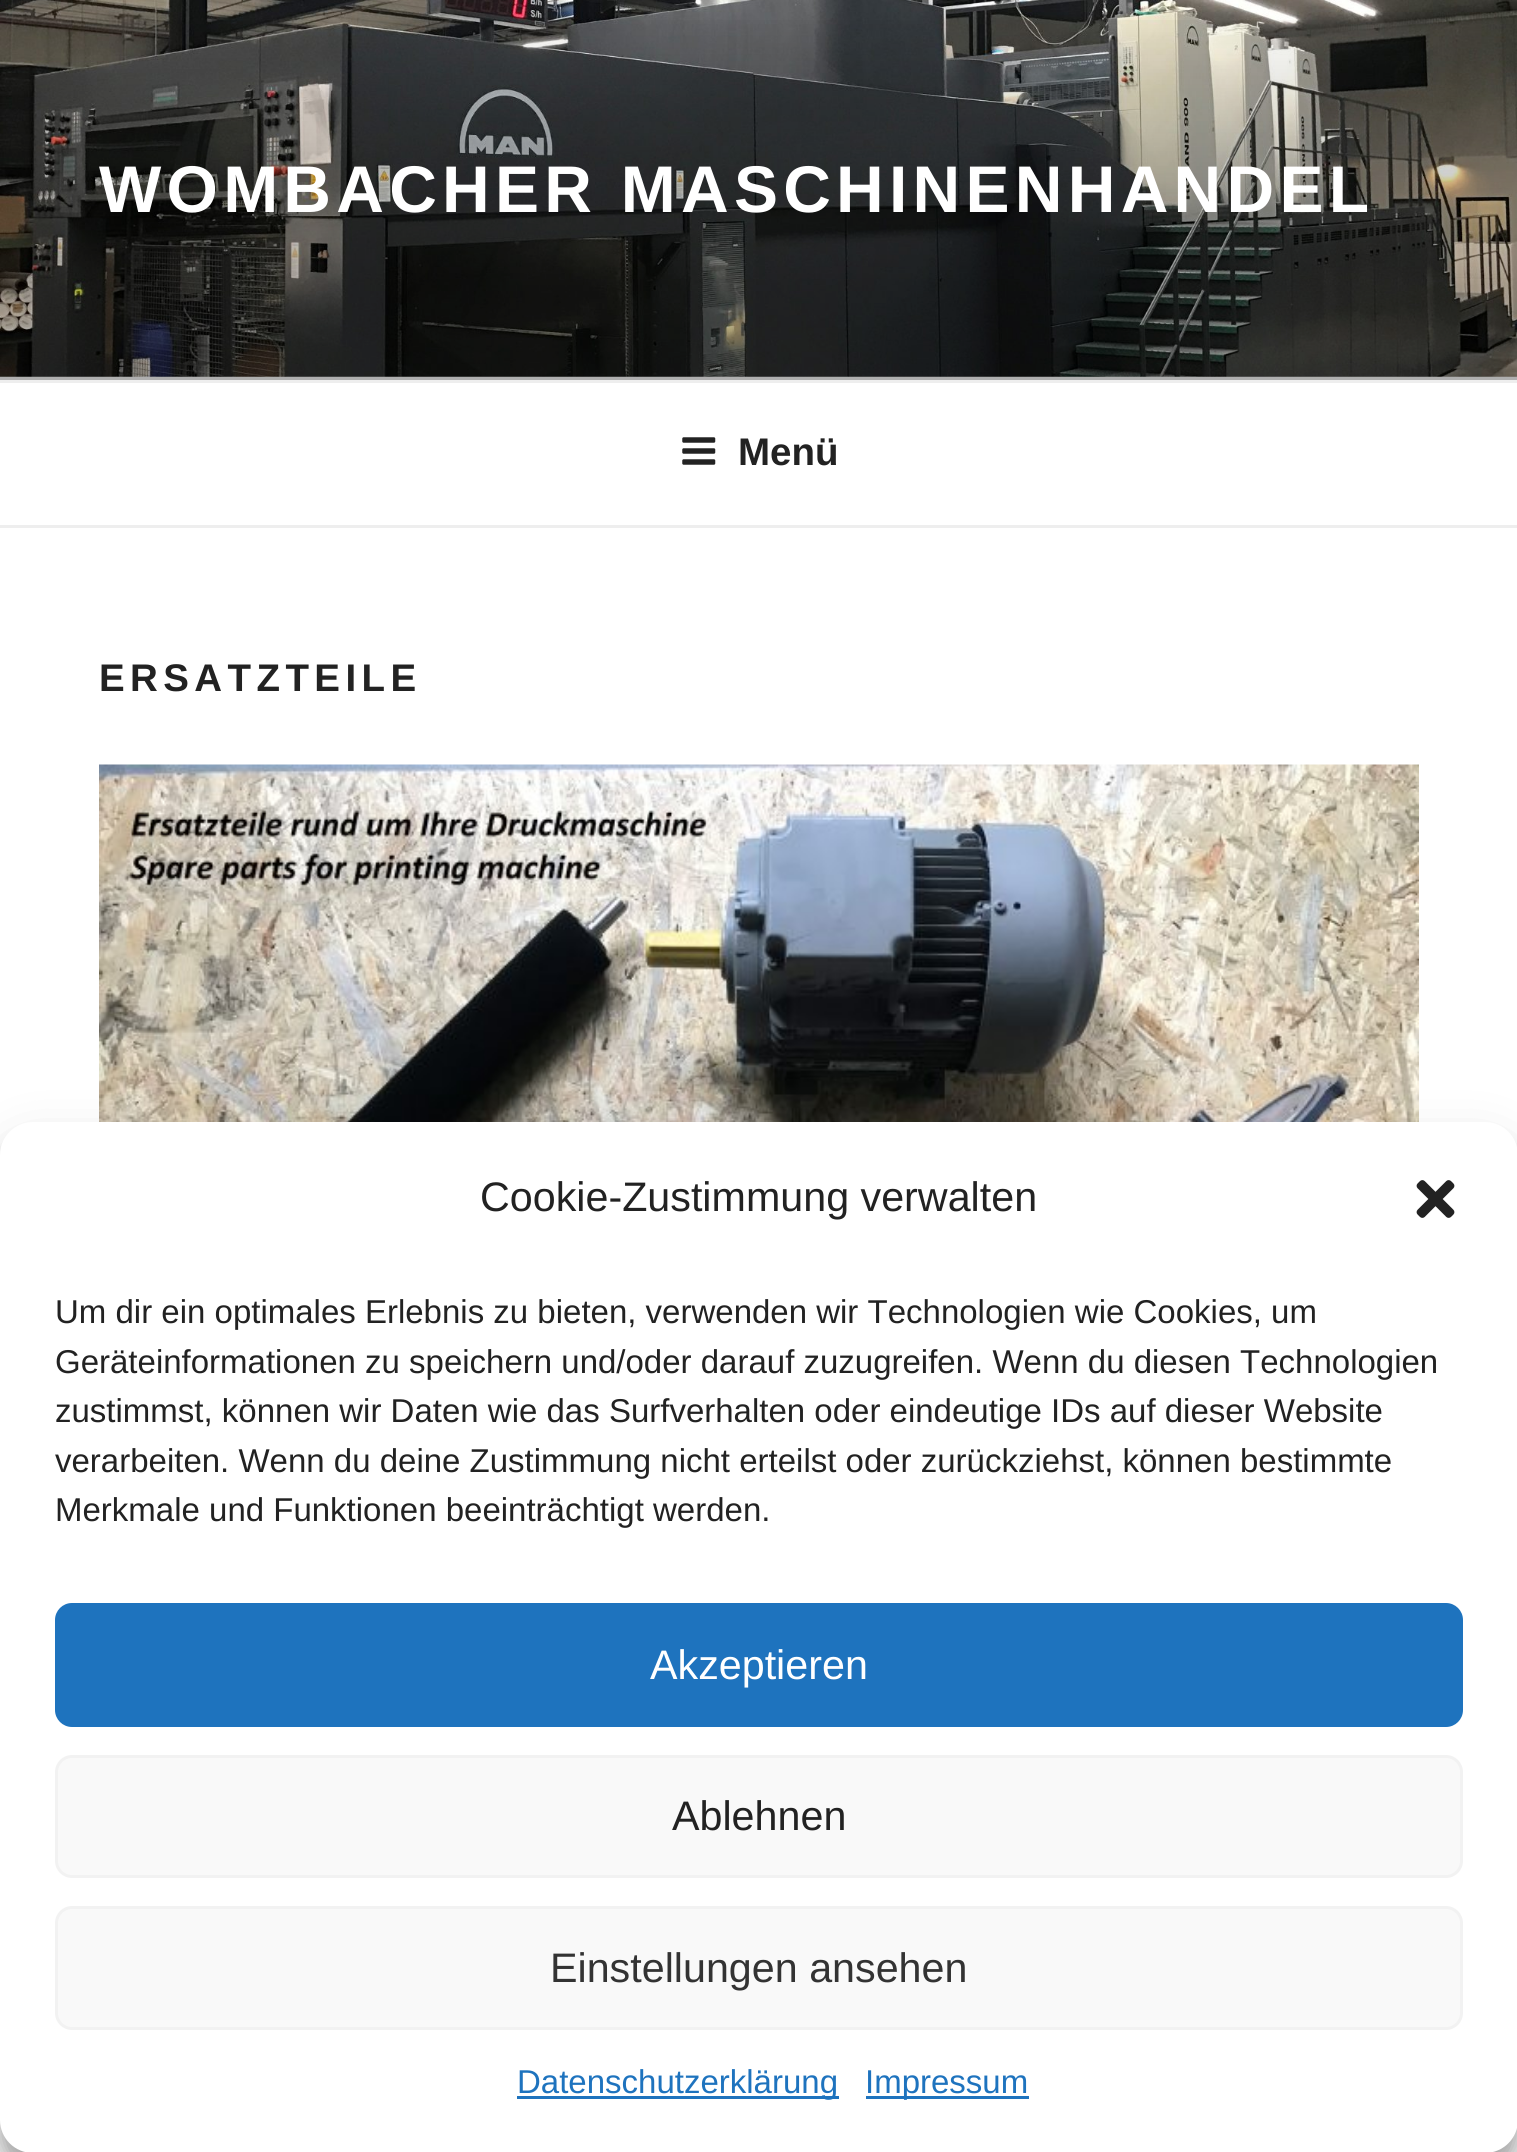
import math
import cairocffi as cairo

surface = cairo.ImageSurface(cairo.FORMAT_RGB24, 1517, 2152)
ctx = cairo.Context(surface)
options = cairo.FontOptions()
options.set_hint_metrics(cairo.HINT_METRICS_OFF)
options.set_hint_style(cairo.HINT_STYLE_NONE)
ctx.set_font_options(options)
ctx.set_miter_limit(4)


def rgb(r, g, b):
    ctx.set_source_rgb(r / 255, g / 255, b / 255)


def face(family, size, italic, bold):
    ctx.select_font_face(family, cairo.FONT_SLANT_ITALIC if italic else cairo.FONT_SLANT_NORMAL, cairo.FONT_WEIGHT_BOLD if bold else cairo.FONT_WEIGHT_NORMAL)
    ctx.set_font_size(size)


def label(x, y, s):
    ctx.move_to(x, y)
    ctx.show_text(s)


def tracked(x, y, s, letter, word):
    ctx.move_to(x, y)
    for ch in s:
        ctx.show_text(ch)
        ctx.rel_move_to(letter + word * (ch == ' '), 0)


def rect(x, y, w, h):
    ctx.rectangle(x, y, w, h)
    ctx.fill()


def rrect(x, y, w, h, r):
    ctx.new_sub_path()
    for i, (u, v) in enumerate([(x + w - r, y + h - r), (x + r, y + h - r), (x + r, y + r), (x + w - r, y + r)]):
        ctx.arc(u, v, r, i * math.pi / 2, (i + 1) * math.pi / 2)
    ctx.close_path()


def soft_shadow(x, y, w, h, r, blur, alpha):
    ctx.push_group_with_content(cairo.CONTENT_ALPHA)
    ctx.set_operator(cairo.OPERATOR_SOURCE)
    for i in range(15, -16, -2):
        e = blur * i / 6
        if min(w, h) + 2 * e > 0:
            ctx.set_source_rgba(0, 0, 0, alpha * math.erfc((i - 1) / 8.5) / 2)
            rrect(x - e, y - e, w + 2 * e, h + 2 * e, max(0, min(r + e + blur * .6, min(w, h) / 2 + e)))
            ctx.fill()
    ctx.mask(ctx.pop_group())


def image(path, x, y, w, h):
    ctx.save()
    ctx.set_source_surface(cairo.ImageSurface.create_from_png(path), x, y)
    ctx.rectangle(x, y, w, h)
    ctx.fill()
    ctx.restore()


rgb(255, 255, 255)
ctx.paint()
rgb(250, 250, 250)
rect(0, 376, 1517, 4)
image('image0.png', 0, 0, 1517, 377)
gradient = cairo.LinearGradient(759, 0, 759, 380)
gradient.add_color_stop_rgba(0, 0, 0, 0, 0)
gradient.add_color_stop_rgba(0.75, 0, 0, 0, 0.3)
gradient.add_color_stop_rgba(1, 0, 0, 0, 0.3)
ctx.set_source(gradient)
rect(0, 20, 1517, 360)
face('Liberation Sans', 66, 0, 1)
rgb(255, 255, 255)
tracked(99, 212, 'WOMBACHER MASCHINENHANDEL', 5.25, 0)
rgb(238, 238, 238)
rect(0, 380, 1517, 3)
rect(0, 525, 1517, 3)
image('image1.png', 682, 437, 34, 28)
face('Liberation Sans', 38.5, 0, 1)
rgb(34, 34, 34)
label(738, 465, 'Menü')
tracked(99, 691, 'ERSATZTEILE', 5.4, 0)
image('image2.png', 99, 764, 1320, 358)
rgb(0, 0, 0)
soft_shadow(0, 1139, 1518, 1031, 33, 8, 0.23)
soft_shadow(0, 1150, 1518, 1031, 33, 27.5, 0.19)
rgb(255, 255, 255)
rrect(0, 1122, 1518, 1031, 33)
ctx.fill()
face('Liberation Sans', 41.25, 0, 0)
rgb(34, 34, 34)
label(480, 1211, 'Cookie-Zustimmung verwalten')
image('image3.png', 1416, 1180, 39, 38)
face('Liberation Sans', 33, 0, 0)
label(55, 1323, 'Um dir ein optimales Erlebnis zu bieten, verwenden wir Technologien wie Cookies, um')
label(55, 1373, 'Geräteinformationen zu speichern und/oder darauf zuzugreifen. Wenn du diesen Technologien')
label(55, 1422, 'zustimmst, können wir Daten wie das Surfverhalten oder eindeutige IDs auf dieser Website')
label(55, 1472, 'verarbeiten. Wenn du deine Zustimmung nicht erteilst oder zurückziehst, können bestimmte')
label(55, 1521, 'Merkmale und Funktionen beeinträchtigt werden.')
rgb(30, 115, 190)
rrect(56.5, 1604.5, 1405, 121, 15.5)
ctx.fill_preserve()
ctx.set_line_width(3)
ctx.stroke()
face('Liberation Sans', 41.25, 0, 0)
rgb(255, 255, 255)
label(650, 1679, 'Akzeptieren')
rgb(249, 249, 249)
rrect(56.5, 1756.5, 1405, 120, 15.5)
ctx.fill_preserve()
rgb(242, 242, 242)
ctx.stroke()
rgb(34, 34, 34)
label(672, 1830, 'Ablehnen')
rgb(249, 249, 249)
rrect(56.5, 1907.5, 1405, 121, 15.5)
ctx.fill_preserve()
rgb(242, 242, 242)
ctx.stroke()
rgb(51, 51, 51)
label(550, 1982, 'Einstellungen ansehen')
rgb(30, 115, 190)
rect(517, 2096, 322, 3)
face('Liberation Sans', 33, 0, 0)
label(517, 2093, 'Datenschutzerklärung')
rect(866, 2096, 163, 3)
label(865, 2093, 'Impressum')
surface.write_to_png('render.png')
